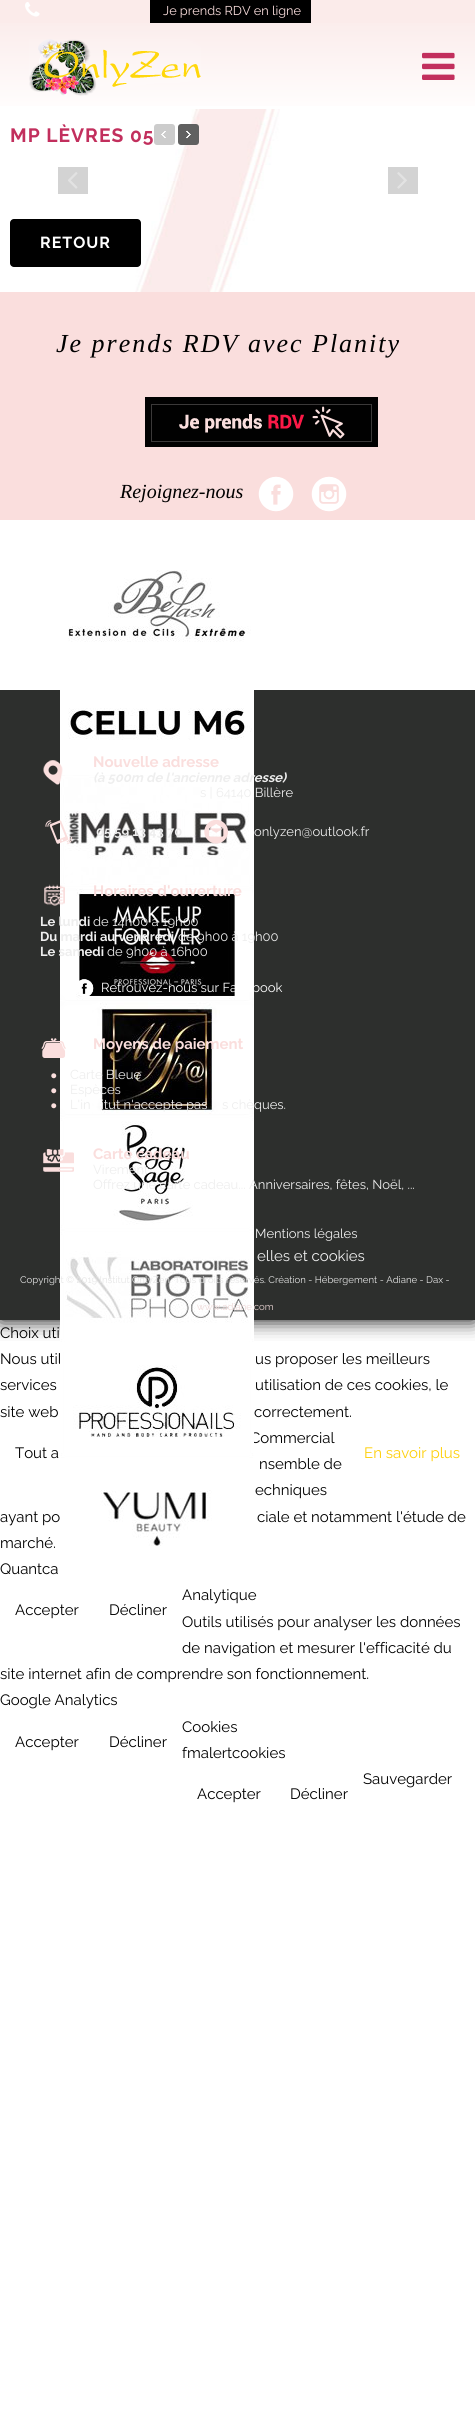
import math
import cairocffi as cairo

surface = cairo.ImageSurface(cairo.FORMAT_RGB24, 475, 2424)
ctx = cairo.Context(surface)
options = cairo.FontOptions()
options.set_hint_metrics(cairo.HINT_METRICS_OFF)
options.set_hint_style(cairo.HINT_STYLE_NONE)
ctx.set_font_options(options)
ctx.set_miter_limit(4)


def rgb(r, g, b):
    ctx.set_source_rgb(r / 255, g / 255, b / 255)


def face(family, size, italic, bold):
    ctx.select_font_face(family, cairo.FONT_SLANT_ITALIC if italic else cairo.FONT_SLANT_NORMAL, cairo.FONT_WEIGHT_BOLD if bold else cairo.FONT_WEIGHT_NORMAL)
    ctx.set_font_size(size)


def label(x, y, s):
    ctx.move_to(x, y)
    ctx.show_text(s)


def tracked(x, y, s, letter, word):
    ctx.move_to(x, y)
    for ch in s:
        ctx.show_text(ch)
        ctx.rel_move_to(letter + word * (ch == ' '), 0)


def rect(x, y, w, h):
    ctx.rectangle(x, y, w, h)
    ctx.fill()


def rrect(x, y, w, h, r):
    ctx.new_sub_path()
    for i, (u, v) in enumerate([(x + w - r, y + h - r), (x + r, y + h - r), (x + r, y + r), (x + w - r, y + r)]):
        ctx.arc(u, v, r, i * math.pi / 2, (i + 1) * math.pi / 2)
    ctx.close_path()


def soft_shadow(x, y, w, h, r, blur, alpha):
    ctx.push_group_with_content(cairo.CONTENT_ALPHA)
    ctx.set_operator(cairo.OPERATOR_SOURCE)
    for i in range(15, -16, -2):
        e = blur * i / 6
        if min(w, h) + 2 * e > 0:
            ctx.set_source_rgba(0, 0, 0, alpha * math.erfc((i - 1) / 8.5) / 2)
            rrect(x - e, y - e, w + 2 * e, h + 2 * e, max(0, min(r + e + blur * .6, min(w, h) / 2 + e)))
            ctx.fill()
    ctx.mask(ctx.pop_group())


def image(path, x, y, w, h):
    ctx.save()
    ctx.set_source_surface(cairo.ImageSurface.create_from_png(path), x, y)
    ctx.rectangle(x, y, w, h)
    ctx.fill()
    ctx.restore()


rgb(255, 255, 255)
ctx.paint()
ctx.save()
ctx.rectangle(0, 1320, 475, 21)
ctx.clip()
rgb(0, 0, 0)
soft_shadow(0, 0, 475, 1320, 0, 10, 1)
ctx.restore()
rgb(251, 235, 234)
rect(311, 0, 164, 23)
rgb(0, 0, 0)
rect(150, 0, 161, 23)
rgb(251, 235, 234)
rect(0, 0, 150, 23)
image('image0.png', 25, 2, 15, 15)
face('Raleway', 12.75, 0, 0)
rgb(250, 222, 221)
label(163, 15, 'Je prends RDV en ligne')
gradient = cairo.LinearGradient(238, 23, 238, 109)
gradient.add_color_stop_rgba(0, 0.984, 0.929, 0.925, 1)
gradient.add_color_stop_rgba(1, 1, 0.992, 0.992, 1)
ctx.set_source(gradient)
rect(0, 23, 475, 83)
image('image1.png', 29, 39, 172, 57)
image('image2.png', 422, 52, 33, 28)
image('image3.png', 0, 109, 320, 183)
face('Raleway', 19.25, 0, 1)
rgb(194, 47, 93)
tracked(10, 142, 'MP LÈVRES 05', 1, 0)
rgb(204, 204, 204)
rrect(154, 124, 21, 21, 3)
ctx.fill()
image('image4.png', 161, 131, 5, 7)
rgb(96, 96, 96)
rrect(178, 124, 21, 21, 3)
ctx.fill()
image('image5.png', 186, 130, 5, 9)
rgb(211, 211, 211)
rect(58, 167, 30, 27)
image('image6.png', 68, 172, 10, 17)
rect(388, 167, 30, 27)
image('image7.png', 397, 172, 10, 17)
rgb(0, 0, 0)
rrect(10, 219, 131, 48, 4)
ctx.fill()
face('Raleway', 16, 0, 1)
rgb(255, 255, 255)
tracked(40, 248, 'RETOUR', 1, 0)
rgb(250, 222, 221)
rect(0, 292, 475, 228)
face('Liberation Serif', 26, 1, 0)
rgb(0, 0, 0)
tracked(56, 352, 'Je prends RDV avec Planity', 2, 0)
image('image8.png', 145, 397, 233, 50)
face('Liberation Serif', 20, 1, 0)
label(120, 498, 'Rejoignez-nous')
image('image9.png', 258, 476, 36, 36)
image('image10.png', 311, 476, 36, 36)
image('image11.png', 68, 570, 183, 72)
rgb(45, 47, 45)
rect(0, 690, 475, 630)
image('image12.png', 60, 690, 194, 84)
image('image13.png', 60, 774, 194, 114)
image('image14.png', 60, 888, 194, 114)
image('image15.png', 60, 1002, 194, 114)
image('image16.png', 60, 1116, 194, 114)
image('image17.png', 60, 1230, 194, 112)
face('Raleway', 15, 0, 0)
rgb(0, 0, 0)
label(0, 1364, 'Nous util')
label(250, 1443, 'Commercial')
image('image18.png', 60, 1352, 194, 106)
image('image19.png', 60, 1458, 194, 114)
image('image20.png', 43, 760, 20, 25)
face('Raleway', 15, 0, 1)
rgb(250, 222, 221)
label(93, 767, 'Nouvelle adresse')
face('Raleway', 13, 1, 1)
rgb(238, 238, 238)
label(93, 782, '(à 500m de l\'ancienne adresse)')
face('Raleway', 13, 0, 0)
label(200, 797, 's | 64140 Billère')
image('image21.png', 45, 820, 28, 24)
face('Raleway', 13, 0, 1)
label(96, 836, '05 59 13 43 70')
image('image22.png', 204, 819, 24, 25)
face('Raleway', 13, 0, 0)
label(254, 836, 'onlyzen@outlook.fr')
image('image23.png', 44, 884, 21, 22)
face('Raleway', 15, 0, 1)
rgb(250, 222, 221)
label(93, 896, 'Horaires d\'ouverture')
face('Raleway', 13, 0, 1)
rgb(238, 238, 238)
label(40, 926, 'Le lundi')
face('Raleway', 13, 0, 0)
label(93, 926, 'de 14h00 à 19h00')
face('Raleway', 13, 0, 1)
label(40, 941, 'Du mardi au vendredi')
face('Raleway', 13, 0, 0)
label(178, 941, 'de 9h00 à 19h00')
face('Raleway', 13, 0, 1)
label(40, 956, 'Le samedi')
face('Raleway', 13, 0, 0)
label(107, 956, 'de 9h00 à 16h00')
image('image24.png', 79, 979, 15, 17)
rgb(255, 255, 255)
label(101, 992, 'Retrouvez-nous sur Fa')
label(252, 992, 'book')
image('image25.png', 41, 1038, 25, 20)
face('Raleway', 15, 0, 1)
rgb(250, 222, 221)
label(93, 1049, 'Moyens de paiement')
image('image26.png', 51, 1073, 6, 6)
face('Raleway', 13, 0, 0)
rgb(238, 238, 238)
label(70, 1079, 'Carte Bleue')
image('image26.png', 51, 1088, 6, 6)
label(70, 1094, 'Espèces')
image('image26.png', 51, 1103, 6, 6)
label(70, 1109, 'L\'in')
label(101, 1109, 'itut n\'accepte pas')
label(222, 1109, 's chèques.')
image('image27.png', 43, 1149, 31, 23)
face('Raleway', 15, 0, 1)
rgb(250, 222, 221)
label(93, 1159, 'Carte cadeau')
face('Raleway', 13, 0, 0)
rgb(238, 238, 238)
label(93, 1174, 'Virement')
label(93, 1189, 'Offrez une carte cadeau... Anniversaires, fêtes, Noël, ...')
label(255, 1238, 'Mentions légales')
face('Raleway', 15, 0, 0)
label(257, 1261, 'elles et cookies')
face('Raleway', 9.6, 0, 0)
rgb(230, 230, 230)
label(20, 1283, 'Copyright © 2019 Institut OnlyZen. Tous droits réservés. Création - Hébergement - Adiane - Dax -')
rgb(238, 216, 215)
label(197, 1310, 'www.adiane.com')
face('Raleway', 15, 0, 0)
rgb(0, 0, 0)
label(0, 1338, 'Choix uti')
label(255, 1364, 'us proposer les meilleurs')
label(0, 1390, 'services')
label(255, 1390, 'utilisation de ces cookies, le')
label(0, 1417, 'site web')
label(254, 1417, 'correctement.')
label(259, 1469, 'nsemble de')
label(255, 1495, 'echniques')
label(0, 1522, 'ayant po')
label(257, 1522, 'ciale et notamment l\'étude de')
label(0, 1548, 'marché.')
label(0, 1574, 'Quantca')
label(15, 1615, 'Accepter')
label(109, 1615, 'Décliner')
label(15, 1458, 'Tout a')
rgb(254, 207, 8)
label(364, 1458, 'En savoir plus')
rgb(0, 0, 0)
label(182, 1600, 'Analytique')
label(182, 1627, 'Outils utilisés pour analyser les données')
label(182, 1653, 'de navigation et mesurer l\'efficacité du')
label(0, 1679, 'site internet afin de comprendre son fonctionnement.')
label(0, 1705, 'Google Analytics')
label(15, 1747, 'Accepter')
label(109, 1747, 'Décliner')
label(182, 1732, 'Cookies')
label(182, 1758, 'fmalertcookies')
label(197, 1799, 'Accepter')
label(290, 1799, 'Décliner')
label(363, 1784, 'Sauvegarder')
surface.write_to_png('render.png')
